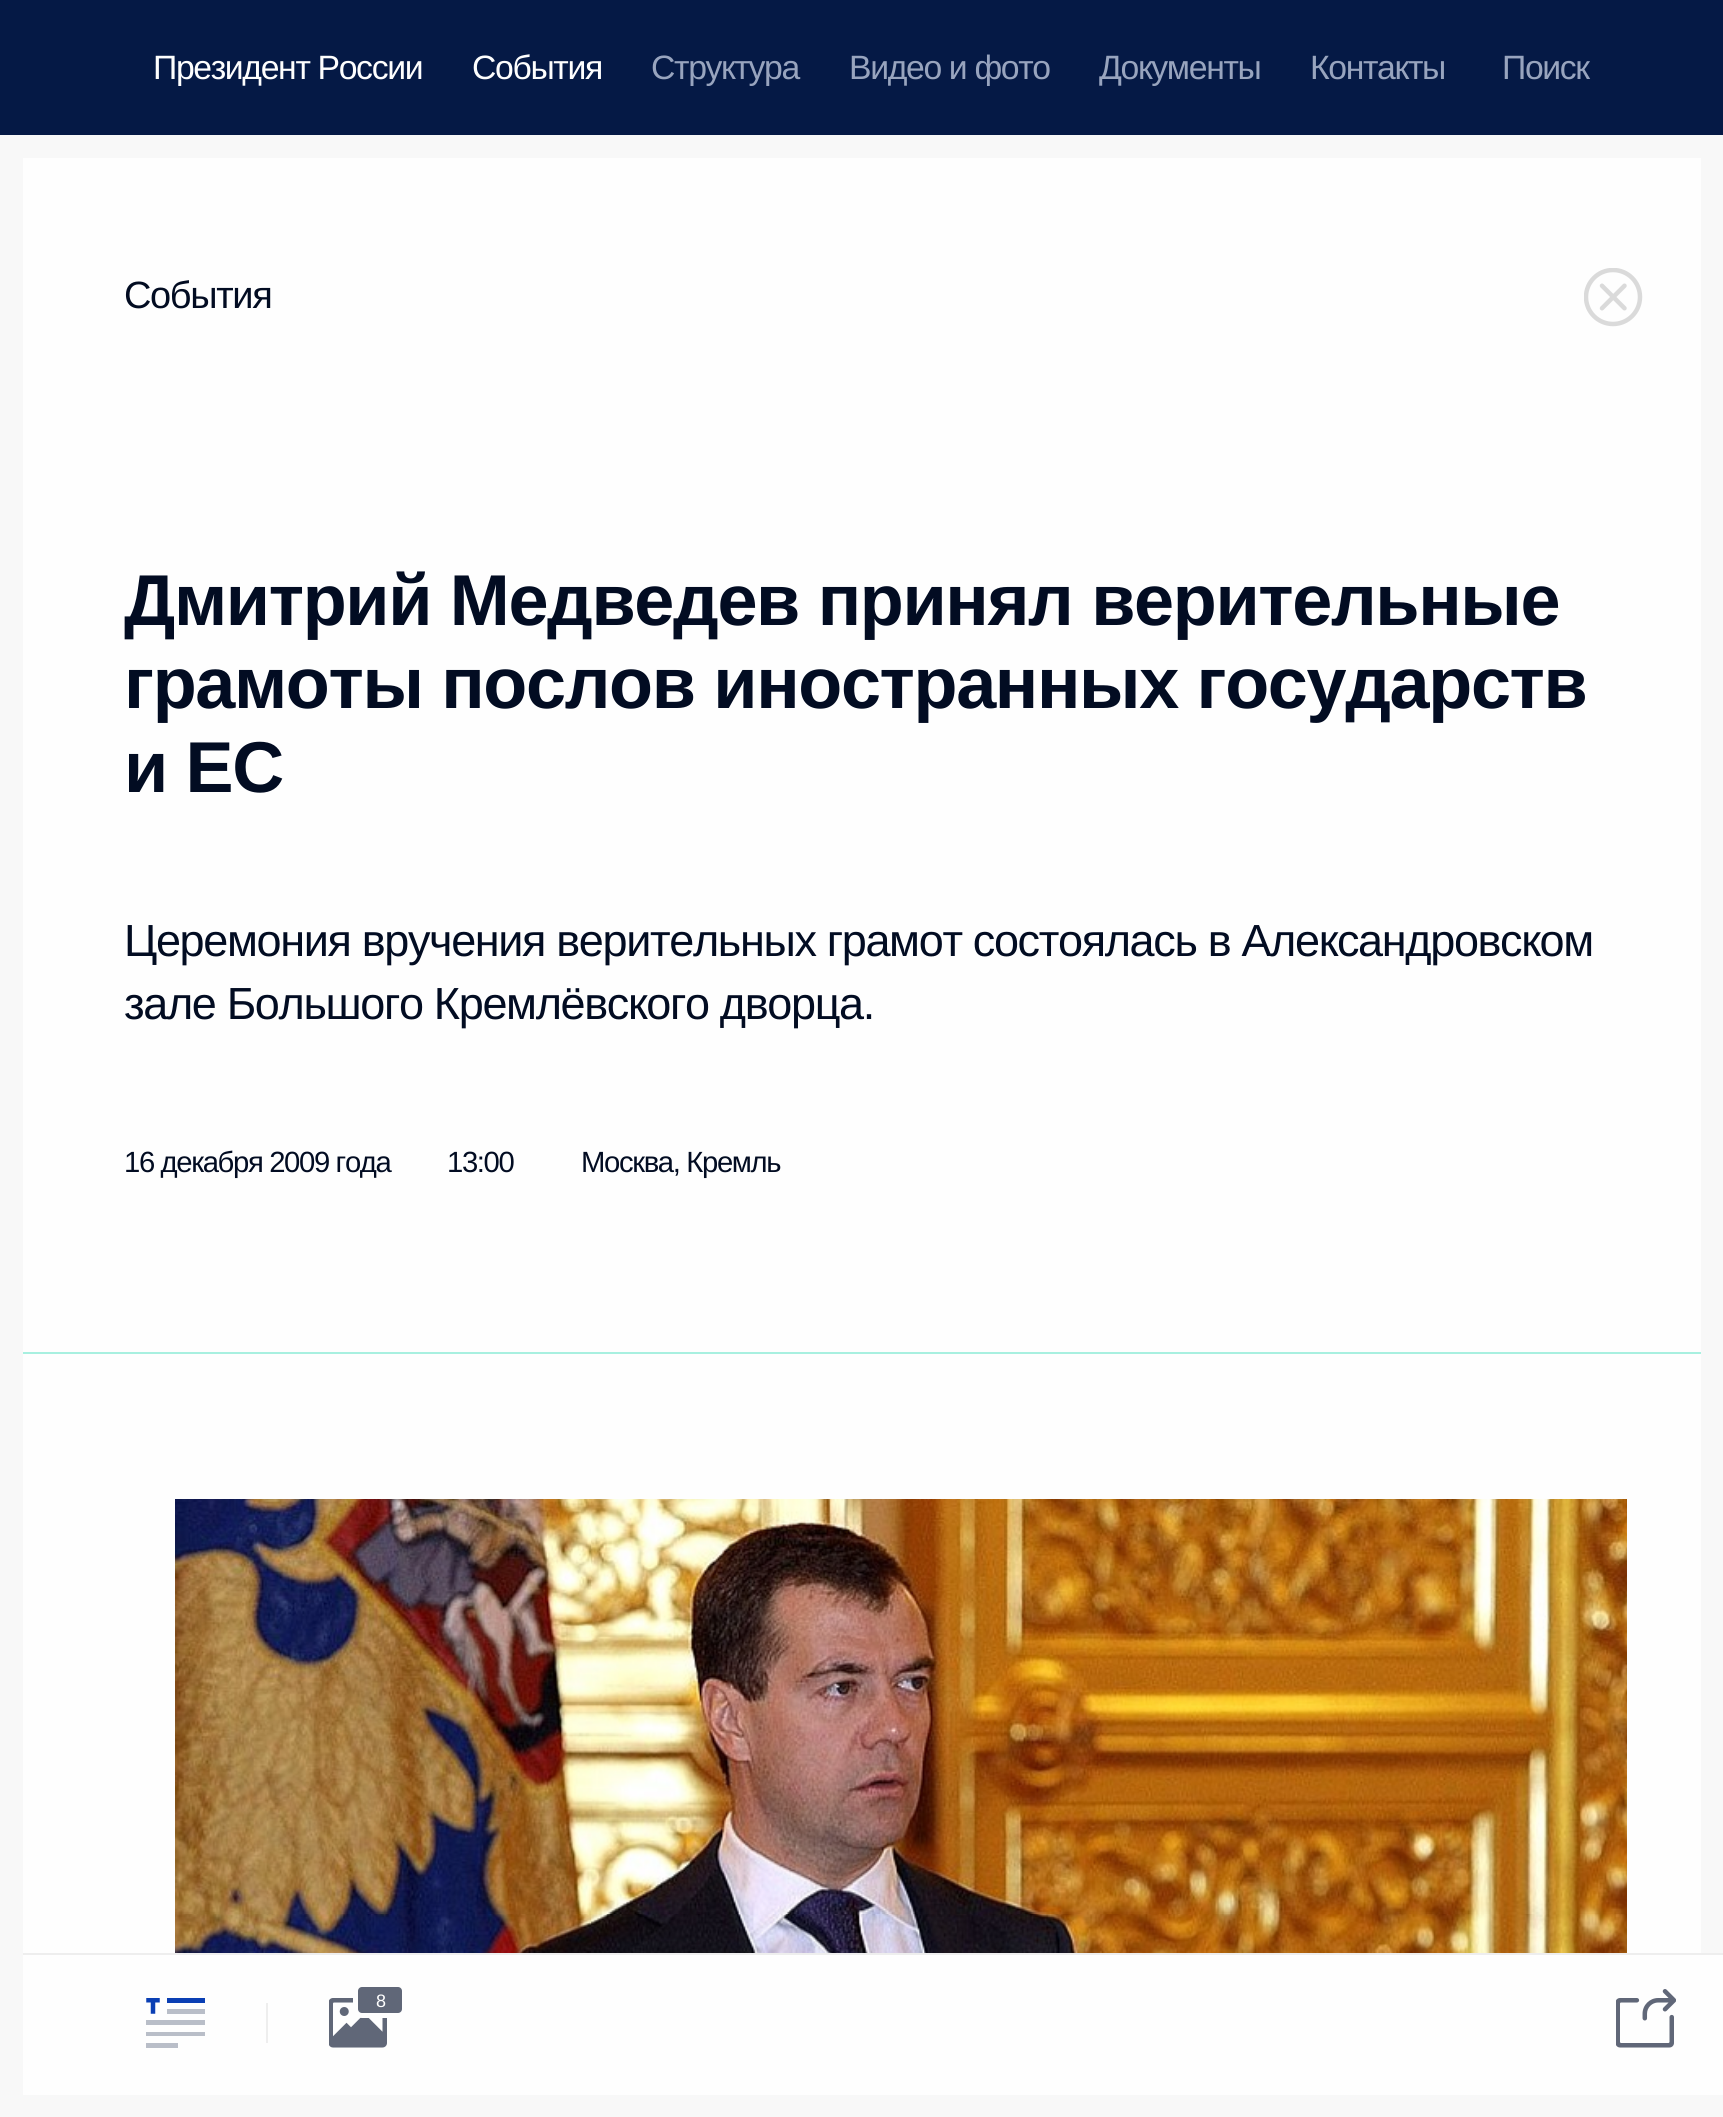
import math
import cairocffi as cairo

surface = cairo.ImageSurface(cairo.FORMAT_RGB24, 1723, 2117)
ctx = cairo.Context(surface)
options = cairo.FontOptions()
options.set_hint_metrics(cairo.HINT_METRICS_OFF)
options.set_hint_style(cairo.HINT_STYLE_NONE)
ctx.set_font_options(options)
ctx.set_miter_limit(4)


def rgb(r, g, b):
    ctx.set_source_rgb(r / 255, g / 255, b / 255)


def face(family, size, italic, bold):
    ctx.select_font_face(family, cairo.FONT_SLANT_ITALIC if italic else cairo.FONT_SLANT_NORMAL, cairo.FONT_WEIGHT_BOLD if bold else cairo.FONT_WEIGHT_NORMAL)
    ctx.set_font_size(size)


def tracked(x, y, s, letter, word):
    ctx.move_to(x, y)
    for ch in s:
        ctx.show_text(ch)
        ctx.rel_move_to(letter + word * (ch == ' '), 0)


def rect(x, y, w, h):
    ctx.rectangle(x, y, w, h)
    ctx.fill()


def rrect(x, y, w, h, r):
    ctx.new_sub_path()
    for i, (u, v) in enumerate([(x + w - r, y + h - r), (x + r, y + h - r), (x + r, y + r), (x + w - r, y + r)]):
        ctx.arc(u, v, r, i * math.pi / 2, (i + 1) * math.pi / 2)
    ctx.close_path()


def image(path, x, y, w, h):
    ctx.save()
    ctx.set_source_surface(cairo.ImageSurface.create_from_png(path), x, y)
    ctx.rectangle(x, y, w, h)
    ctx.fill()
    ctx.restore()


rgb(248, 248, 248)
ctx.paint()
rgb(5, 25, 69)
rect(0, 0, 1723, 135)
face('Liberation Sans', 33.75, 0, 0)
rgb(254, 254, 254)
tracked(153, 79, 'Президент России', -1.35, 0)
tracked(472, 79, 'События', -1.35, 0)
rgb(152, 164, 190)
tracked(651, 79, 'Структура', -1.35, 0)
tracked(849, 79, 'Видео и фото', -1.35, 0)
tracked(1099, 79, 'Документы', -1.35, 0)
tracked(1310, 79, 'Контакты', -1.35, 0)
tracked(1502, 79, 'Поиск', -1.35, 0)
rgb(254, 254, 254)
rect(23, 158, 1678, 1795)
rgb(168, 240, 224)
rect(23, 1352, 1678, 2)
face('Liberation Sans', 38, 0, 0)
rgb(2, 12, 34)
tracked(124, 308, 'События', -1.35, 0)
face('Liberation Sans', 72, 0, 1)
tracked(124, 625, 'Дмитрий Медведев принял верительные', -1.35, 0)
tracked(124, 708, 'грамоты послов иностранных государств', -1.35, 0)
tracked(124, 792, 'и ЕС', -1.35, 0)
face('Liberation Sans', 45, 0, 0)
tracked(124, 956, 'Церемония вручения верительных грамот состоялась в Александровском', -1.35, 0)
tracked(124, 1019, 'зале Большого Кремлёвского дворца.', -1.35, 0)
face('Liberation Sans', 29.25, 0, 0)
tracked(124, 1172, '16 декабря 2009 года', -1.35, 0)
tracked(447, 1172, '13:00', -1.35, 0)
tracked(581, 1172, 'Москва, Кремль', -1.35, 0)
image('image0.png', 175, 1499, 1452, 454)
image('image1.png', 1584, 268, 59, 59)
rgb(254, 254, 254)
rect(23, 1955, 1700, 140)
rgb(238, 238, 238)
rect(23, 1953, 1700, 2)
image('image2.png', 146, 1998, 59, 50)
rect(266, 2003, 2, 40)
image('image3.png', 329, 1998, 58, 50)
rgb(96, 103, 120)
rrect(355.5, 1984.5, 49, 31, 6.5)
ctx.fill_preserve()
rgb(254, 254, 254)
ctx.set_line_width(5)
ctx.stroke()
face('Liberation Sans', 18, 0, 0)
tracked(376, 2007, '8', -1.35, 0)
image('image4.png', 1616, 1989, 60, 59)
surface.write_to_png('render.png')
